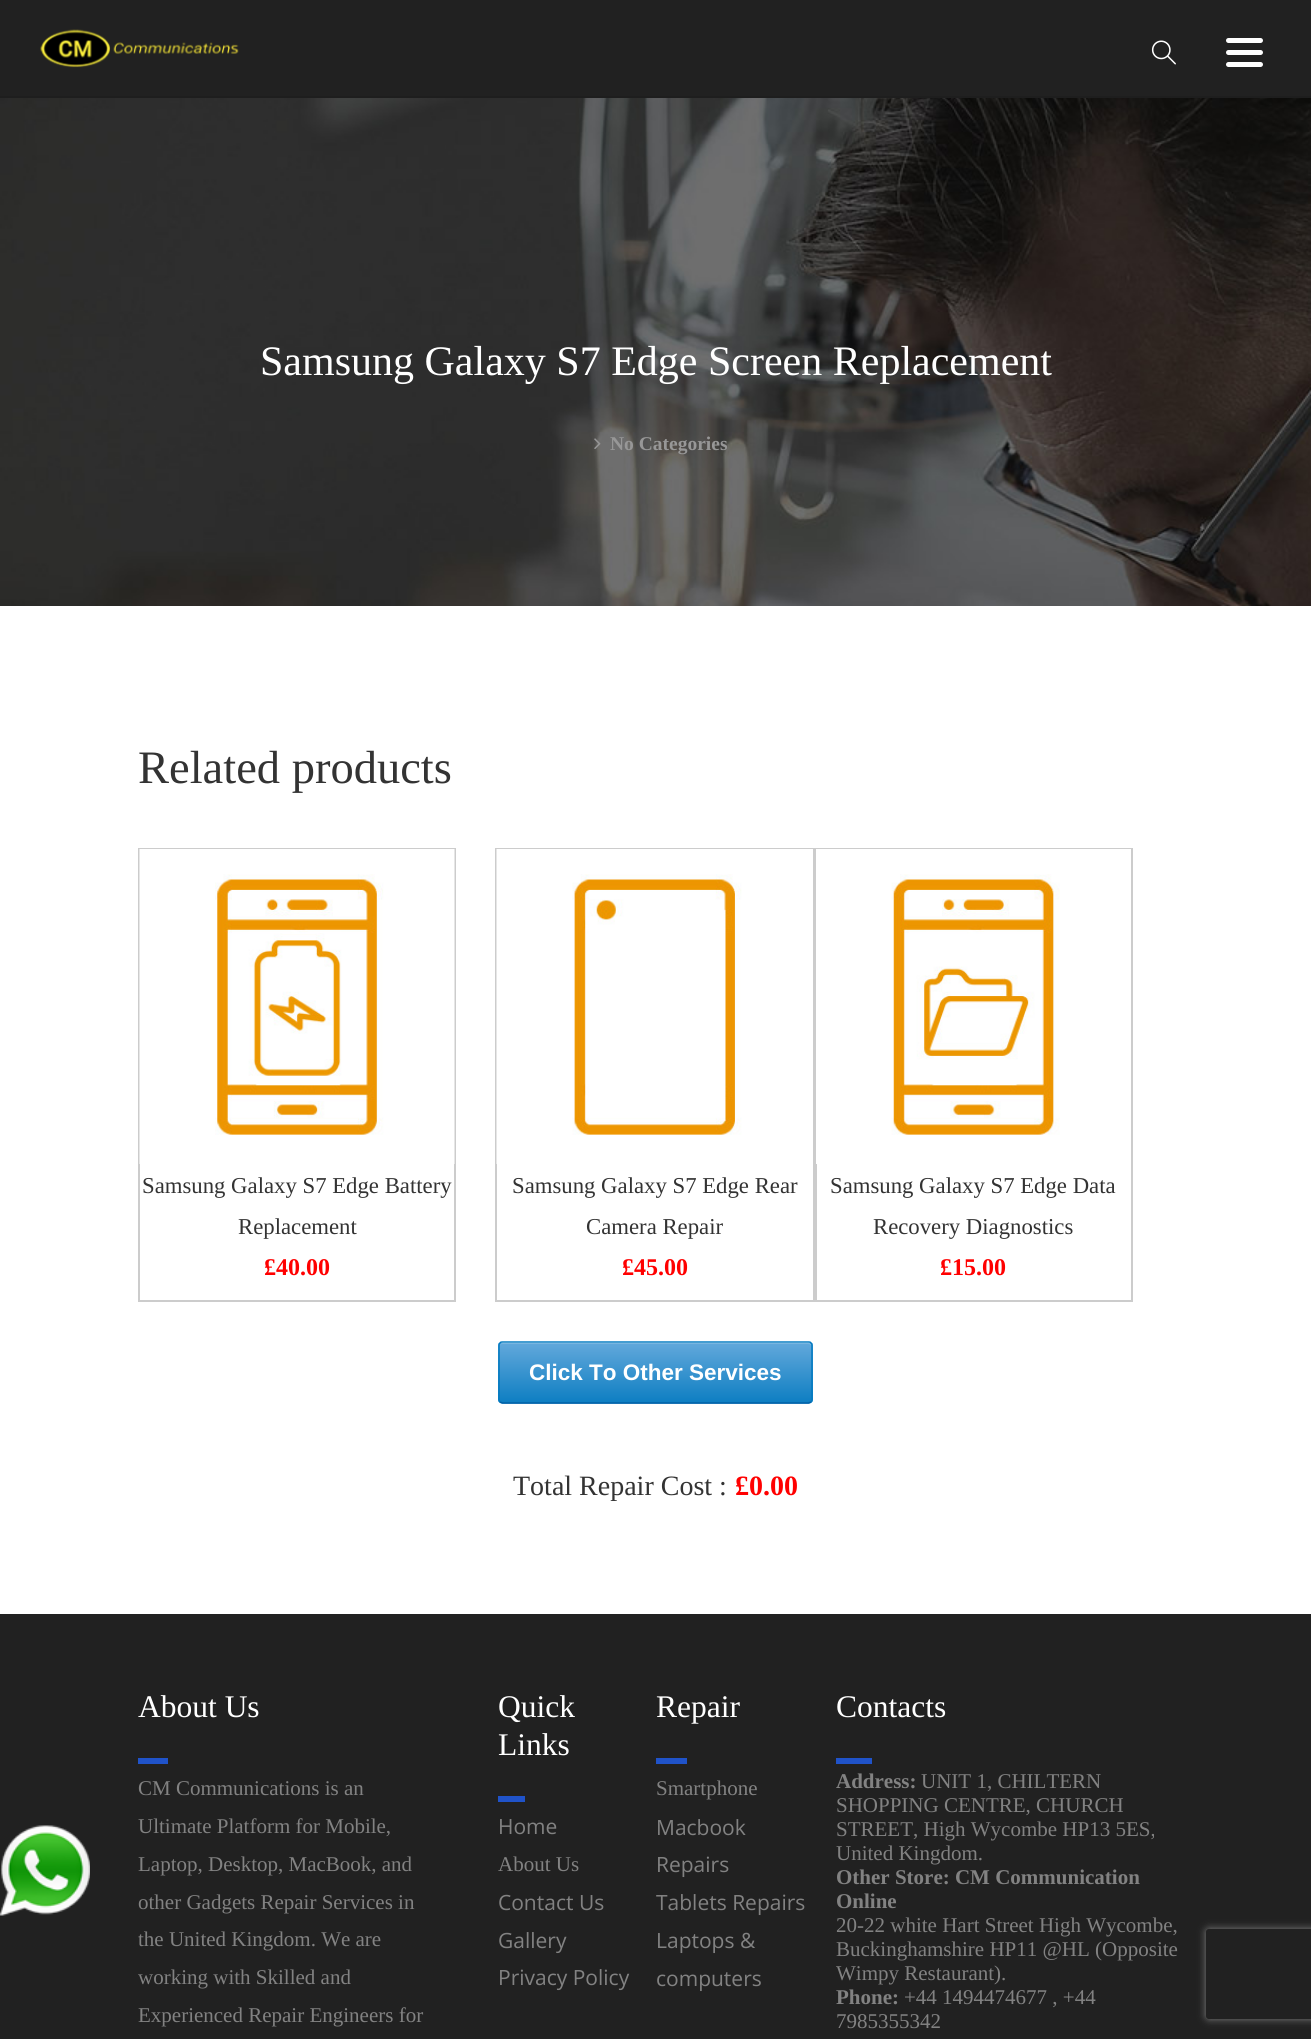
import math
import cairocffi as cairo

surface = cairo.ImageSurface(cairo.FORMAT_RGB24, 1311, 2039)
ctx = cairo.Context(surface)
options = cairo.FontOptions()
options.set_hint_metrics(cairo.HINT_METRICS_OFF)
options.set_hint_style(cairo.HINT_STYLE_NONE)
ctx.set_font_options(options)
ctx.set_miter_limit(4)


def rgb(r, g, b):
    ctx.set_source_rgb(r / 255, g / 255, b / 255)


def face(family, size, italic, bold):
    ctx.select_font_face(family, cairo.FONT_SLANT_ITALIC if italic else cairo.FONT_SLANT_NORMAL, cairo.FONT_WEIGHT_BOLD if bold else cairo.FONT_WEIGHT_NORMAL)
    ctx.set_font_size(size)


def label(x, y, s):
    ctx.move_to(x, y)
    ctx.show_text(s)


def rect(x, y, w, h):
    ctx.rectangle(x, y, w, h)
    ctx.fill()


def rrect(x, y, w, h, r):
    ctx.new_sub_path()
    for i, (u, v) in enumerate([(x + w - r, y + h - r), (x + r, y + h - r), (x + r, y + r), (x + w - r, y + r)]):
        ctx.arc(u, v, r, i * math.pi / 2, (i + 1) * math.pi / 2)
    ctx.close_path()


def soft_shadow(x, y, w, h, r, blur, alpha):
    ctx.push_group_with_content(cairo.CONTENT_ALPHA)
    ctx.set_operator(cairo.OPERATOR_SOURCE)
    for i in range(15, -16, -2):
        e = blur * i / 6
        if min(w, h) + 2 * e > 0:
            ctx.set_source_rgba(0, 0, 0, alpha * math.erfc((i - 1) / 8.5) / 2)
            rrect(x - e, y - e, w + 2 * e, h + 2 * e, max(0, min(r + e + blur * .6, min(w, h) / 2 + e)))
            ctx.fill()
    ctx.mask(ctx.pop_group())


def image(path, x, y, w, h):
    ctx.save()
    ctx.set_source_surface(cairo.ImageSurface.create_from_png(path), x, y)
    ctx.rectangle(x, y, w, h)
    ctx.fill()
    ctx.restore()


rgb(255, 255, 255)
ctx.paint()
rgb(33, 33, 33)
rect(0, 1614, 1311, 425)
image('image0.png', 0, 1825, 90, 91)
rect(0, 0, 1311, 96)
image('image1.png', 40, 29, 199, 39)
image('image2.png', 1151, 40, 25, 25)
rgb(255, 255, 255)
rrect(1226, 38, 37, 5, 2.5)
ctx.fill()
rrect(1226, 50, 37, 5, 2.5)
ctx.fill()
rrect(1226, 62, 37, 5, 2.5)
ctx.fill()
rgb(30, 30, 30)
rect(0, 96, 1311, 2)
image('image3.png', 0, 98, 1311, 508)
face('Liberation Serif', 42, 0, 0)
rgb(255, 255, 255)
label(260, 375, 'Samsung Galaxy S7 Edge Screen Replacement')
image('image4.png', 594, 438, 7, 11)
face('Liberation Serif', 19.5, 0, 1)
rgb(151, 151, 151)
label(610, 450, 'No Categories')
face('Liberation Serif', 46.5, 0, 0)
rgb(51, 51, 51)
label(138, 783, 'Related products')
ctx.rectangle(139, 849, 316, 452)
rgb(204, 204, 204)
ctx.stroke()
image('image5.png', 139, 849, 316, 315)
face('Liberation Serif', 22.75, 0, 0)
rgb(51, 51, 51)
label(142, 1193, 'Samsung Galaxy S7 Edge Battery')
label(238, 1234, 'Replacement')
face('Liberation Serif', 24, 0, 1)
rgb(255, 0, 0)
label(264, 1275, '£40.00')
ctx.rectangle(496, 849, 318, 452)
rgb(204, 204, 204)
ctx.stroke()
image('image6.png', 496, 849, 317, 315)
face('Liberation Serif', 22.75, 0, 0)
rgb(51, 51, 51)
label(512, 1193, 'Samsung Galaxy S7 Edge Rear')
label(586, 1234, 'Camera Repair')
face('Liberation Serif', 24, 0, 1)
rgb(255, 0, 0)
label(622, 1275, '£45.00')
ctx.rectangle(816, 849, 316, 452)
rgb(204, 204, 204)
ctx.stroke()
image('image7.png', 816, 849, 315, 315)
face('Liberation Serif', 22.75, 0, 0)
rgb(51, 51, 51)
label(830, 1193, 'Samsung Galaxy S7 Edge Data')
label(873, 1234, 'Recovery Diagnostics')
face('Liberation Serif', 24, 0, 1)
rgb(255, 0, 0)
label(940, 1275, '£15.00')
ctx.save()
rrect(498, 1341, 315, 63, 5)
ctx.clip()
gradient = cairo.LinearGradient(656, 1343, 656, 1403)
gradient.add_color_stop_rgba(0, 0.384, 0.659, 0.859, 1)
gradient.add_color_stop_rgba(1, 0.051, 0.494, 0.761, 1)
ctx.set_source(gradient)
rect(498, 1343, 315, 60)
gradient = cairo.LinearGradient(656, 1403, 656, 1463)
gradient.add_color_stop_rgba(0, 0.384, 0.659, 0.859, 1)
gradient.add_color_stop_rgba(1, 0.051, 0.494, 0.761, 1)
ctx.set_source(gradient)
rect(498, 1403, 315, 1)
ctx.restore()
rgb(121, 181, 224)
ctx.new_path()
ctx.move_to(502, 1344)
ctx.line_to(808, 1344)
ctx.curve_to(810, 1344, 812, 1345, 812, 1347)
ctx.line_to(811, 1344)
ctx.line_to(810, 1343)
ctx.line_to(503, 1343)
ctx.curve_to(501, 1343, 500, 1345, 500, 1347)
ctx.curve_to(500, 1345, 501, 1344, 502, 1344)
ctx.close_path()
ctx.fill()
ctx.new_path()
ctx.move_to(811, 1402)
ctx.line_to(808.5, 1403)
ctx.line_to(502.5, 1403)
ctx.line_to(500, 1402)
rgb(1, 96, 165)
ctx.set_line_width(1.5)
ctx.stroke()
ctx.new_path()
ctx.move_to(500, 1402)
ctx.curve_to(499, 1401.5, 499, 1400.5, 499, 1399.5)
ctx.line_to(499, 1345.5)
ctx.curve_to(499, 1344.5, 499, 1343.5, 500, 1343)
ctx.curve_to(500.5, 1342, 501.5, 1342, 502.5, 1342)
ctx.line_to(808.5, 1342)
ctx.curve_to(809.5, 1342, 810.5, 1342, 811, 1343)
ctx.curve_to(812, 1343.5, 812, 1344.5, 812, 1345.5)
ctx.line_to(812, 1399.5)
ctx.curve_to(812, 1400.5, 812, 1401.5, 811, 1402)
rgb(1, 121, 192)
ctx.stroke()
face('Liberation Sans', 22.5, 0, 1)
rgb(255, 255, 255)
label(529, 1380, 'Click To Other Services')
face('Liberation Serif', 28, 0, 0)
rgb(51, 51, 51)
label(513, 1495, 'Total Repair Cost :')
face('Liberation Serif', 28, 0, 1)
rgb(255, 0, 0)
label(735, 1495, '£0.00')
face('Liberation Serif', 31.5, 0, 0)
rgb(255, 255, 255)
label(138, 1717, 'About Us')
rgb(32, 83, 201)
rect(138, 1758, 30, 6)
face('Liberation Serif', 21, 0, 0)
rgb(130, 130, 130)
label(138, 1795, 'CM Communications is an')
label(138, 1833, 'Ultimate Platform for Mobile,')
label(138, 1871, 'Laptop, Desktop, MacBook, and')
label(138, 1909, 'other Gadgets Repair Services in')
label(138, 1946, 'the United Kingdom. We are')
label(138, 1984, 'working with Skilled and')
label(138, 2022, 'Experienced Repair Engineers for')
face('Liberation Serif', 31.5, 0, 0)
rgb(255, 255, 255)
label(498, 1717, 'Quick')
label(498, 1755, 'Links')
rgb(32, 83, 201)
rect(498, 1796, 27, 6)
face('Open Sans', 21, 0, 0)
rgb(130, 130, 130)
label(498, 1834, 'Home')
face('Liberation Serif', 21, 0, 0)
label(498, 1871, 'About Us')
face('Open Sans', 21, 0, 0)
label(498, 1910, 'Contact Us')
label(498, 1948, 'Gallery')
label(498, 1985, 'Privacy Policy')
face('Liberation Serif', 31.5, 0, 0)
rgb(255, 255, 255)
label(656, 1717, 'Repair')
rgb(32, 83, 201)
rect(656, 1758, 31, 6)
face('Liberation Serif', 21, 0, 0)
rgb(130, 130, 130)
label(656, 1795, 'Smartphone')
face('Open Sans', 21, 0, 0)
label(656, 1835, 'Macbook')
label(656, 1872, 'Repairs')
label(656, 1910, 'Tablets Repairs')
label(656, 1948, 'Laptops &')
label(656, 1986, 'computers')
face('Liberation Serif', 31.5, 0, 0)
rgb(255, 255, 255)
label(836, 1717, 'Contacts')
rgb(32, 83, 201)
rect(836, 1758, 36, 6)
face('Liberation Serif', 21, 0, 1)
rgb(130, 130, 130)
label(836, 1788, 'Address:')
face('Liberation Serif', 21, 0, 0)
label(921, 1788, 'UNIT 1, CHILTERN')
label(836, 1812, 'SHOPPING CENTRE, CHURCH')
label(836, 1836, 'STREET, High Wycombe HP13 5ES,')
label(836, 1860, 'United Kingdom.')
face('Liberation Serif', 21, 0, 1)
label(836, 1884, 'Other Store: CM Communication')
label(836, 1908, 'Online')
face('Liberation Serif', 21, 0, 0)
label(836, 1932, '20-22 white Hart Street High Wycombe,')
label(836, 1956, 'Buckinghamshire HP11 @HL (Opposite')
label(836, 1980, 'Wimpy Restaurant).')
face('Liberation Serif', 21, 0, 1)
label(836, 2004, 'Phone:')
face('Liberation Serif', 21, 0, 0)
label(904, 2004, '+44 1494474677 , +44')
label(836, 2028, '7985355342')
ctx.save()
ctx.set_fill_rule(cairo.FILL_RULE_EVEN_ODD)
ctx.new_path()
ctx.move_to(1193, 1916)
ctx.line_to(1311, 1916)
ctx.line_to(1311, 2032)
ctx.line_to(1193, 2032)
ctx.close_path()
ctx.move_to(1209, 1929)
ctx.line_to(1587, 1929)
ctx.curve_to(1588.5, 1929, 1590, 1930.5, 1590, 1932)
ctx.line_to(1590, 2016)
ctx.curve_to(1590, 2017.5, 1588.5, 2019, 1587, 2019)
ctx.line_to(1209, 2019)
ctx.curve_to(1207.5, 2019, 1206, 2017.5, 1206, 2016)
ctx.line_to(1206, 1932)
ctx.curve_to(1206, 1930.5, 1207.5, 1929, 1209, 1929)
ctx.close_path()
ctx.clip()
rgb(128, 128, 128)
soft_shadow(1206, 1929, 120, 90, 3, 4, 1)
ctx.restore()
surface.write_to_png('render.png')
